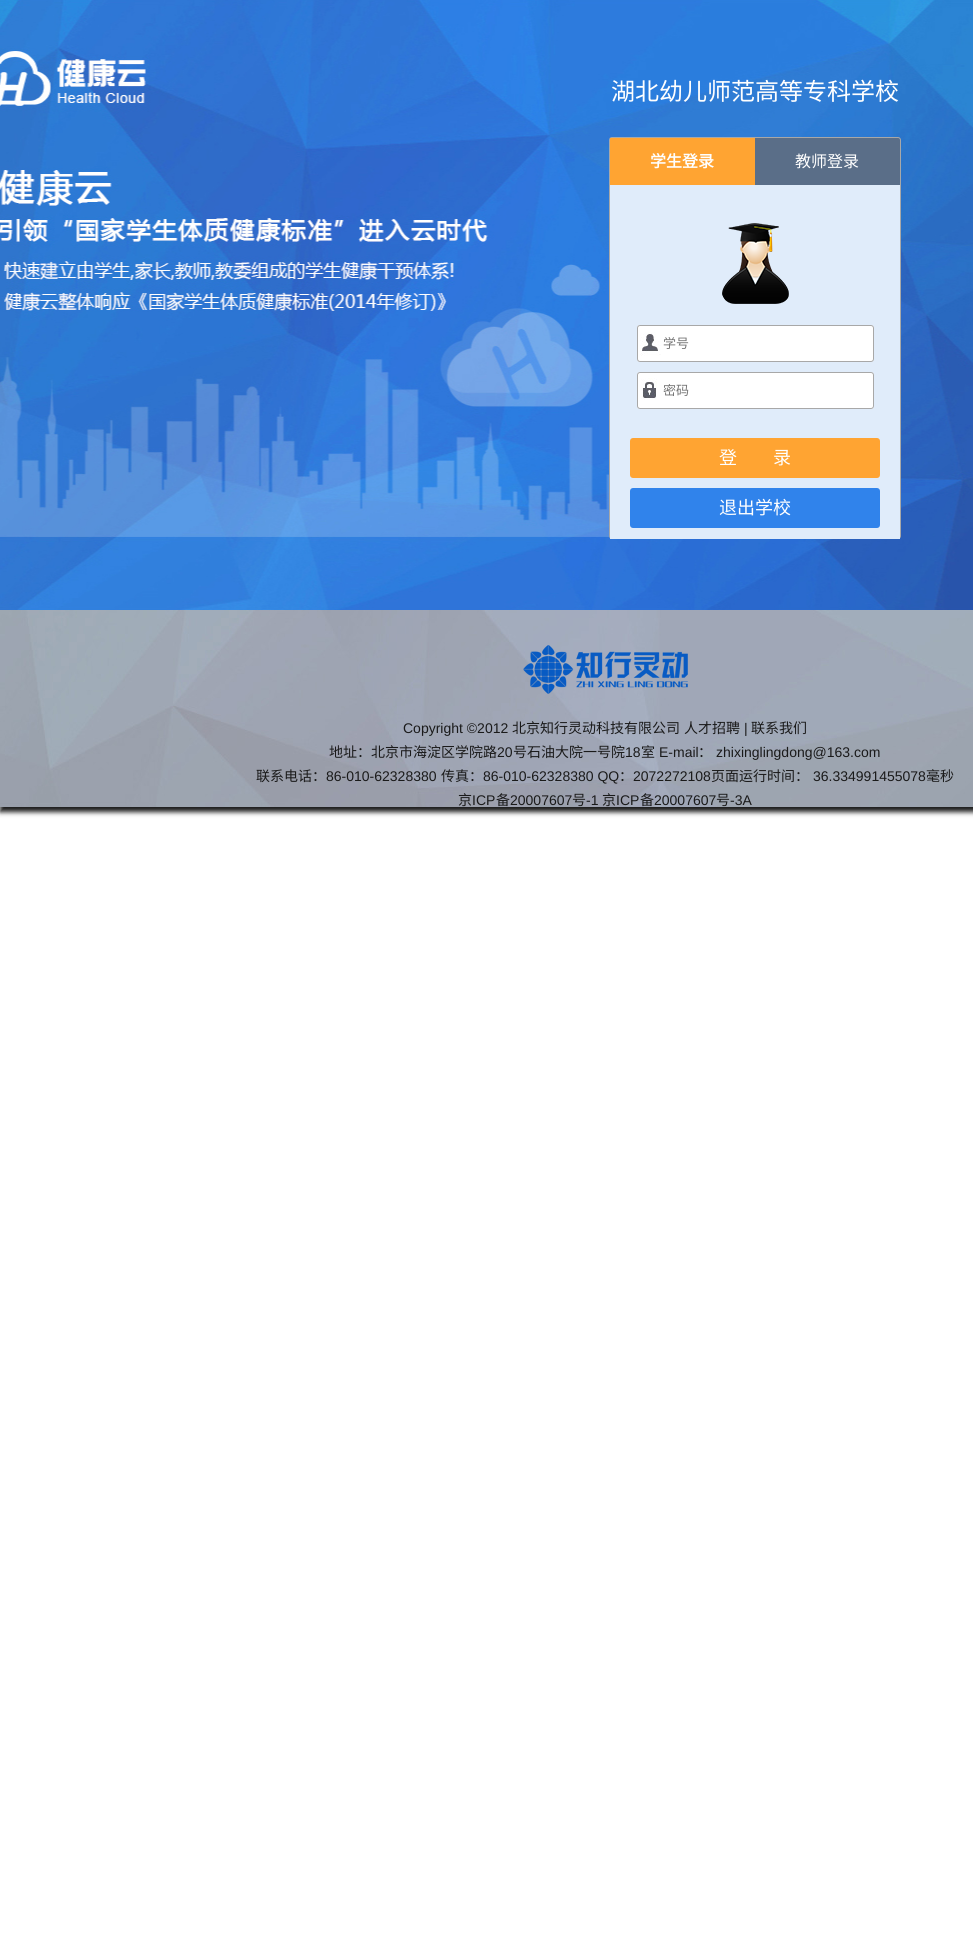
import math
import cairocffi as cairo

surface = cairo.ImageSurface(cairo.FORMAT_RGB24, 973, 1950)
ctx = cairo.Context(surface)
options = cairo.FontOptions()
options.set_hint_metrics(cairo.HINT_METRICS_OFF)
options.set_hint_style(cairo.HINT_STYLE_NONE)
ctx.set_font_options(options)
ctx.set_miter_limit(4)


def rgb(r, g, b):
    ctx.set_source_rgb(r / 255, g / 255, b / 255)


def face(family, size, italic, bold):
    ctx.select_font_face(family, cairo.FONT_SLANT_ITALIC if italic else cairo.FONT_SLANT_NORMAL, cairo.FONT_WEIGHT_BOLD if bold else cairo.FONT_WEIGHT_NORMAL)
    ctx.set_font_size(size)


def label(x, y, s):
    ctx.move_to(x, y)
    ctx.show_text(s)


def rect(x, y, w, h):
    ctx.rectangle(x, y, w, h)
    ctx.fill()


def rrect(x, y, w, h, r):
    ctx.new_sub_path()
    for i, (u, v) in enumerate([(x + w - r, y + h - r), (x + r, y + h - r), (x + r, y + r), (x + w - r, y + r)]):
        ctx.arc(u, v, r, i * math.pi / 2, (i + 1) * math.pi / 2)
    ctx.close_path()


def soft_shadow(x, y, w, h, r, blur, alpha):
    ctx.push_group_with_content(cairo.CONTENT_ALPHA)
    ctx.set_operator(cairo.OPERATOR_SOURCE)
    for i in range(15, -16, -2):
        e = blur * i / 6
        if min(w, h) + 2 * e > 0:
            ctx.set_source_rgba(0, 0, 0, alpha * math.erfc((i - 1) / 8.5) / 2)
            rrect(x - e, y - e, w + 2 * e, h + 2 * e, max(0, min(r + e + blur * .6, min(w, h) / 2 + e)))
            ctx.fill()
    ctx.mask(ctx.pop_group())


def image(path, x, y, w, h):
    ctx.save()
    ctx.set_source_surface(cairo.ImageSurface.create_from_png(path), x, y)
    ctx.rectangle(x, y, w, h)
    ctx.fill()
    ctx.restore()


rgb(255, 255, 255)
ctx.paint()
rgb(26, 26, 26)
soft_shadow(0, 615, 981, 197, 0, 2.5, 1)
image('image0.png', 0, 0, 973, 610)
face('Noto Sans CJK SC', 24, 0, 0)
rgb(255, 255, 255)
label(611, 100, '湖北幼儿师范高等专科学校')
rgb(90, 110, 136)
rrect(609.5, 137.5, 291, 401, 2.5)
ctx.fill_preserve()
rgb(168, 168, 168)
ctx.set_line_width(1)
ctx.stroke()
rgb(255, 164, 50)
rect(610, 138, 145, 47)
face('Noto Sans CJK SC', 16, 0, 1)
rgb(255, 255, 255)
label(650, 167, '学生登录')
face('Noto Sans CJK SC', 16, 0, 0)
label(795, 167, '教师登录')
rgb(224, 236, 250)
rect(610, 185, 290, 354)
image('image1.png', 722, 223, 67, 81)
rgb(255, 255, 255)
rrect(637, 325, 237, 37, 3)
ctx.fill()
image('image2.png', 640, 332, 21, 24)
rrect(637.5, 325.5, 236, 36, 2.5)
rgb(168, 168, 168)
ctx.stroke()
face('Noto Sans CJK SC', 13, 0, 0)
rgb(117, 117, 117)
label(663, 348, '学号')
rgb(255, 255, 255)
rrect(637, 372, 237, 37, 3)
ctx.fill()
image('image3.png', 641, 378, 16, 22)
rrect(637.5, 372.5, 236, 36, 2.5)
rgb(168, 168, 168)
ctx.stroke()
rgb(117, 117, 117)
label(663, 395, '密码')
rgb(255, 164, 50)
rrect(630, 438, 250, 40, 3)
ctx.fill()
face('Noto Sans CJK SC', 18, 0, 0)
rgb(255, 255, 255)
label(719, 464, '登　　录')
rgb(48, 131, 235)
rrect(630, 488, 250, 40, 3)
ctx.fill()
rgb(255, 255, 255)
label(719, 514, '退出学校')
image('image4.png', 0, 610, 973, 197)
image('image5.png', 523, 645, 165, 49)
face('Liberation Sans', 14, 0, 0)
rgb(26, 26, 26)
label(403, 733, 'Copyright ©2012')
face('Noto Sans CJK SC', 14, 0, 0)
label(512, 733, '北京知行灵动科技有限公司')
label(684, 733, '人才招聘')
face('Liberation Sans', 14, 0, 0)
label(744, 733, '|')
face('Noto Sans CJK SC', 14, 0, 0)
label(751, 733, '联系我们')
label(329, 757, '地址：北京市海淀区学院路')
face('Liberation Sans', 14, 0, 0)
label(497, 757, '20')
face('Noto Sans CJK SC', 14, 0, 0)
label(513, 757, '号石油大院一号院')
face('Liberation Sans', 14, 0, 0)
label(625, 757, '18')
face('Noto Sans CJK SC', 14, 0, 0)
label(641, 757, '室')
face('Liberation Sans', 14, 0, 0)
label(659, 757, 'E-mail')
face('Noto Sans CJK SC', 14, 0, 0)
label(698, 757, '：')
face('Liberation Sans', 14, 0, 0)
label(716, 757, 'zhixinglingdong@163.com')
face('Noto Sans CJK SC', 14, 0, 0)
label(256, 781, '联系电话：')
face('Liberation Sans', 14, 0, 0)
label(326, 781, '86-010-62328380')
face('Noto Sans CJK SC', 14, 0, 0)
label(441, 781, '传真：')
face('Liberation Sans', 14, 0, 0)
label(483, 781, '86-010-62328380 QQ')
face('Noto Sans CJK SC', 14, 0, 0)
label(619, 781, '：')
face('Liberation Sans', 14, 0, 0)
label(633, 781, '2072272108')
face('Noto Sans CJK SC', 14, 0, 0)
label(711, 781, '页面运行时间：')
face('Liberation Sans', 14, 0, 0)
label(813, 781, '36.334991455078')
face('Noto Sans CJK SC', 14, 0, 0)
label(926, 781, '毫秒')
label(458, 805, '京')
face('Liberation Sans', 14, 0, 0)
label(472, 805, 'ICP')
face('Noto Sans CJK SC', 14, 0, 0)
label(496, 805, '备')
face('Liberation Sans', 14, 0, 0)
label(510, 805, '20007607')
face('Noto Sans CJK SC', 14, 0, 0)
label(572, 805, '号')
face('Liberation Sans', 14, 0, 0)
label(586, 805, '-1')
face('Noto Sans CJK SC', 14, 0, 0)
label(602, 805, '京')
face('Liberation Sans', 14, 0, 0)
label(616, 805, 'ICP')
face('Noto Sans CJK SC', 14, 0, 0)
label(640, 805, '备')
face('Liberation Sans', 14, 0, 0)
label(654, 805, '20007607')
face('Noto Sans CJK SC', 14, 0, 0)
label(716, 805, '号')
face('Liberation Sans', 14, 0, 0)
label(730, 805, '-3A')
surface.write_to_png('render.png')
